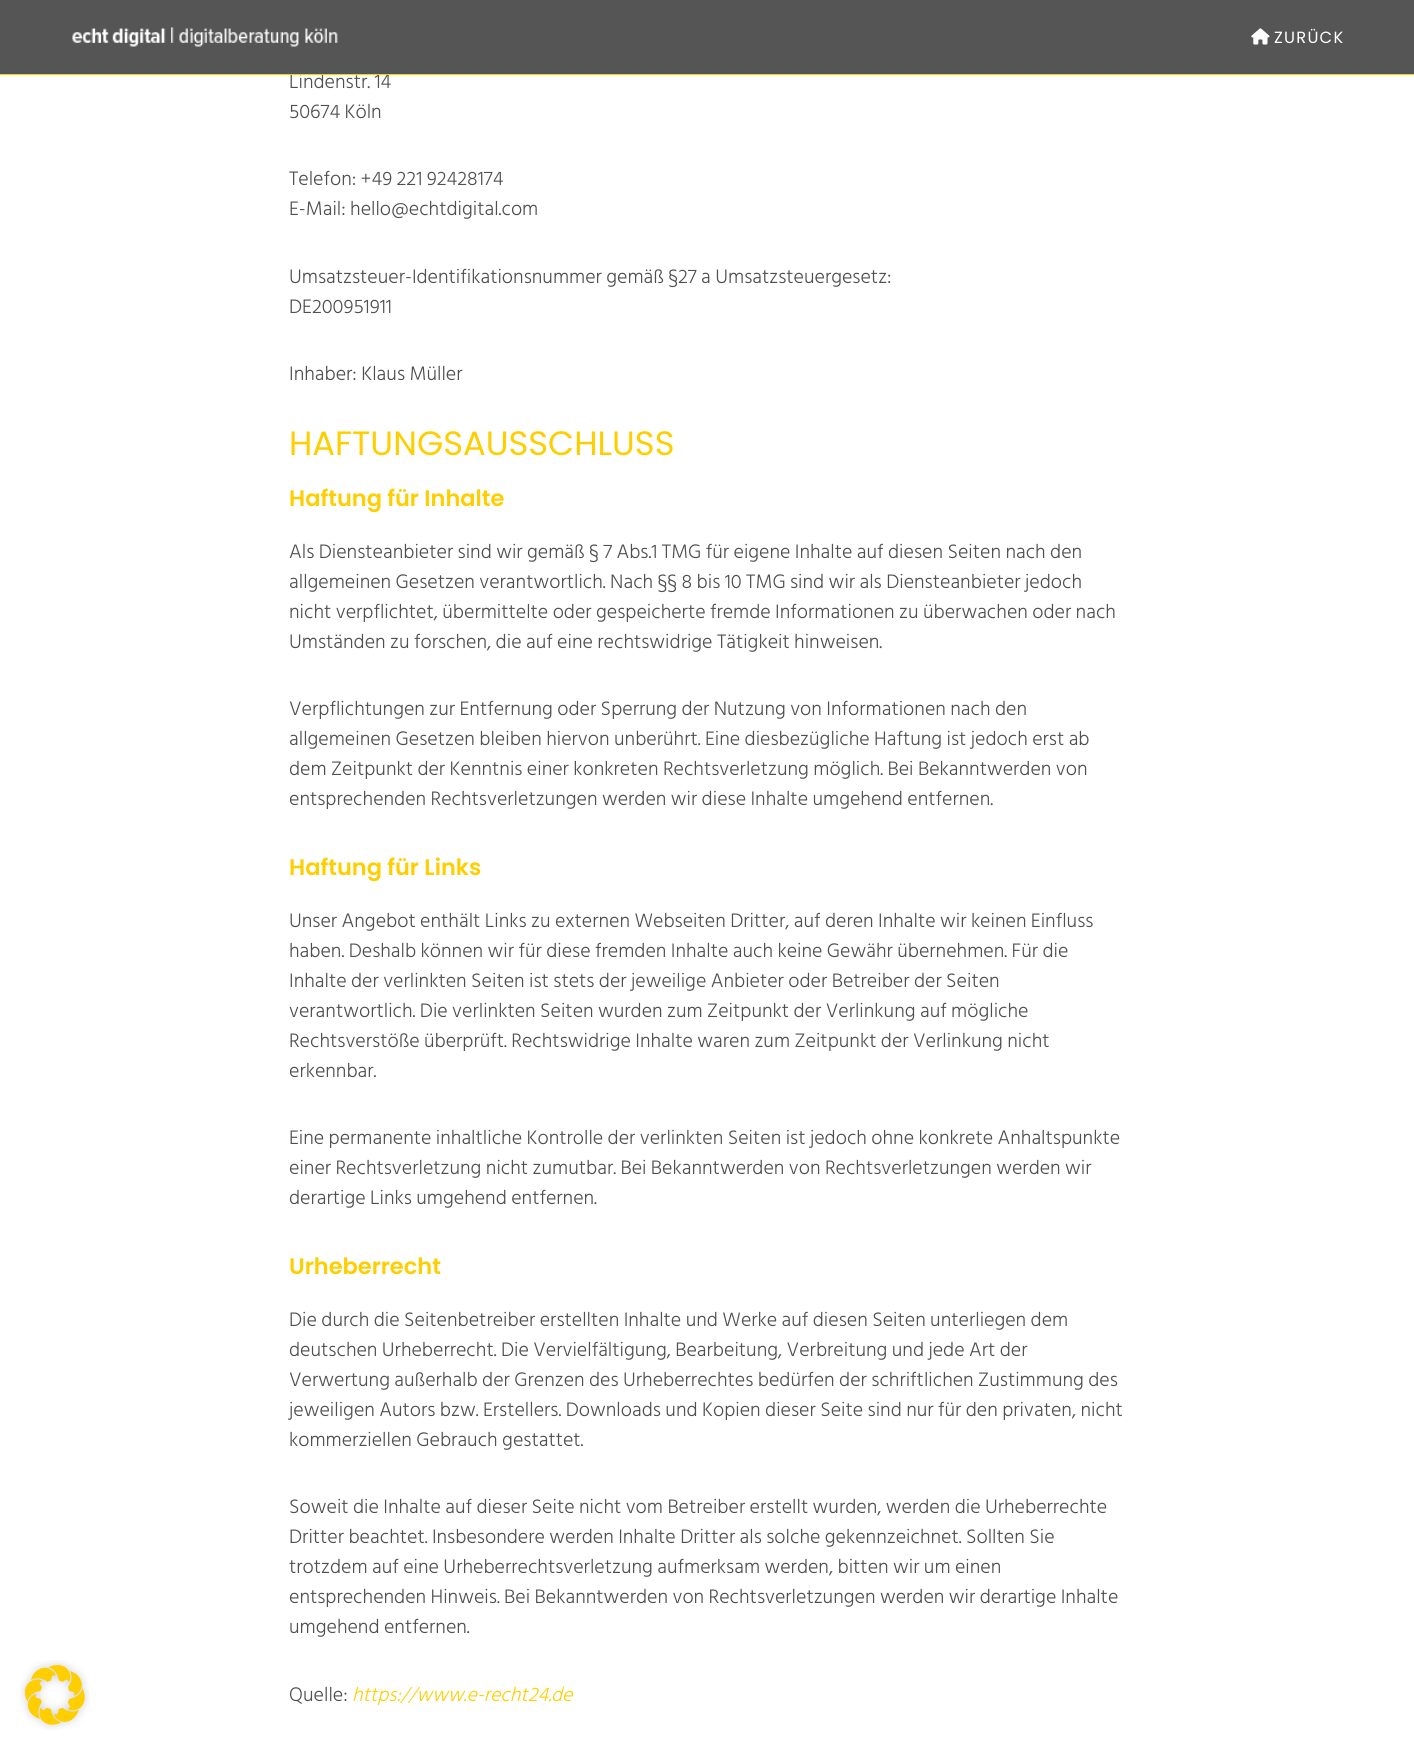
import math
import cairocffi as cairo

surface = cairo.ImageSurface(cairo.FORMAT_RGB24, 1414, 1750)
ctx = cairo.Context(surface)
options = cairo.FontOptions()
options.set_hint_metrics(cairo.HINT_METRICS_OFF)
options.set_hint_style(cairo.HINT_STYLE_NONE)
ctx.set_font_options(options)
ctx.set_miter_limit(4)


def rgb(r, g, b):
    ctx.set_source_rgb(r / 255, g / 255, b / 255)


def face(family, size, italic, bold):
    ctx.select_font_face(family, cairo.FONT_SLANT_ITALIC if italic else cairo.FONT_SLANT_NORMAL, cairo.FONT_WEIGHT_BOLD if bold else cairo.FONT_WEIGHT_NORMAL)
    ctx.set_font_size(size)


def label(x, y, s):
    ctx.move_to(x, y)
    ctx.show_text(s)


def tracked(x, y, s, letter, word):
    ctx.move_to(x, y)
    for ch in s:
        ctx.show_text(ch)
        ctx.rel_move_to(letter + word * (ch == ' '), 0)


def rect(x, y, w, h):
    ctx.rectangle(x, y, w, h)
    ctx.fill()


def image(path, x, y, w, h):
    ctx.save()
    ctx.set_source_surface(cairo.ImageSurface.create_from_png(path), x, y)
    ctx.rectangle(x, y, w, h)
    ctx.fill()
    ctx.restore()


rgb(255, 255, 255)
ctx.paint()
image('image0.png', 20, 1660, 70, 70)
face('Hind Siliguri Light', 20, 0, 0)
rgb(79, 79, 79)
label(289, 88, 'Lindenstr. 14')
rgb(85, 85, 85)
rect(0, 0, 1414, 74)
rgb(255, 206, 0)
rect(0, 74, 1414, 1)
image('image1.png', 72, 27, 266, 20)
image('image2.png', 1251, 28, 19, 17)
face('Poppins', 16.25, 0, 0)
rgb(255, 255, 255)
tracked(1274, 43, 'ZURÜCK', 1.25, 0)
face('Hind Siliguri Light', 20, 0, 0)
rgb(79, 79, 79)
label(289, 118, '50674 Köln')
label(289, 185, 'Telefon: +49 221 92428174')
label(289, 215, 'E-Mail: hello@echtdigital.com')
label(289, 283, 'Umsatzsteuer-Identifikationsnummer gemäß §27 a Umsatzsteuergesetz:')
label(289, 313, 'DE200951911')
label(289, 380, 'Inhaber: Klaus Müller')
face('Poppins', 33.75, 0, 0)
rgb(255, 206, 0)
label(289, 455, 'HAFTUNGSAUSSCHLUSS')
face('Poppins SemiBold', 22.5, 0, 0)
label(289, 506, 'Haftung für Inhalte')
face('Hind Siliguri Light', 20, 0, 0)
rgb(79, 79, 79)
label(289, 558, 'Als Diensteanbieter sind wir gemäß § 7 Abs.1 TMG für eigene Inhalte auf diesen Seiten nach den')
label(289, 588, 'allgemeinen Gesetzen verantwortlich. Nach §§ 8 bis 10 TMG sind wir als Diensteanbieter jedoch')
label(289, 618, 'nicht verpflichtet, übermittelte oder gespeicherte fremde Informationen zu überwachen oder nach')
label(289, 648, 'Umständen zu forschen, die auf eine rechtswidrige Tätigkeit hinweisen.')
label(289, 715, 'Verpflichtungen zur Entfernung oder Sperrung der Nutzung von Informationen nach den')
label(289, 745, 'allgemeinen Gesetzen bleiben hiervon unberührt. Eine diesbezügliche Haftung ist jedoch erst ab')
label(289, 775, 'dem Zeitpunkt der Kenntnis einer konkreten Rechtsverletzung möglich. Bei Bekanntwerden von')
label(289, 805, 'entsprechenden Rechtsverletzungen werden wir diese Inhalte umgehend entfernen.')
face('Poppins SemiBold', 22.5, 0, 0)
rgb(255, 206, 0)
label(289, 875, 'Haftung für Links')
face('Hind Siliguri Light', 20, 0, 0)
rgb(79, 79, 79)
label(289, 927, 'Unser Angebot enthält Links zu externen Webseiten Dritter, auf deren Inhalte wir keinen Einfluss')
label(289, 957, 'haben. Deshalb können wir für diese fremden Inhalte auch keine Gewähr übernehmen. Für die')
label(289, 987, 'Inhalte der verlinkten Seiten ist stets der jeweilige Anbieter oder Betreiber der Seiten')
label(289, 1017, 'verantwortlich. Die verlinkten Seiten wurden zum Zeitpunkt der Verlinkung auf mögliche')
label(289, 1047, 'Rechtsverstöße überprüft. Rechtswidrige Inhalte waren zum Zeitpunkt der Verlinkung nicht')
label(289, 1077, 'erkennbar.')
label(289, 1144, 'Eine permanente inhaltliche Kontrolle der verlinkten Seiten ist jedoch ohne konkrete Anhaltspunkte')
label(289, 1174, 'einer Rechtsverletzung nicht zumutbar. Bei Bekanntwerden von Rechtsverletzungen werden wir')
label(289, 1204, 'derartige Links umgehend entfernen.')
face('Poppins SemiBold', 22.5, 0, 0)
rgb(255, 206, 0)
label(289, 1274, 'Urheberrecht')
face('Hind Siliguri Light', 20, 0, 0)
rgb(79, 79, 79)
label(289, 1326, 'Die durch die Seitenbetreiber erstellten Inhalte und Werke auf diesen Seiten unterliegen dem')
label(289, 1356, 'deutschen Urheberrecht. Die Vervielfältigung, Bearbeitung, Verbreitung und jede Art der')
label(289, 1386, 'Verwertung außerhalb der Grenzen des Urheberrechtes bedürfen der schriftlichen Zustimmung des')
label(289, 1416, 'jeweiligen Autors bzw. Erstellers. Downloads und Kopien dieser Seite sind nur für den privaten, nicht')
label(289, 1446, 'kommerziellen Gebrauch gestattet.')
label(289, 1513, 'Soweit die Inhalte auf dieser Seite nicht vom Betreiber erstellt wurden, werden die Urheberrechte')
label(289, 1543, 'Dritter beachtet. Insbesondere werden Inhalte Dritter als solche gekennzeichnet. Sollten Sie')
label(289, 1573, 'trotzdem auf eine Urheberrechtsverletzung aufmerksam werden, bitten wir um einen')
label(289, 1603, 'entsprechenden Hinweis. Bei Bekanntwerden von Rechtsverletzungen werden wir derartige Inhalte')
label(289, 1633, 'umgehend entfernen.')
label(289, 1701, 'Quelle:')
face('Hind Siliguri Light', 20, 1, 0)
rgb(255, 206, 0)
label(352, 1701, 'https://www.e-recht24.de')
surface.write_to_png('render.png')
